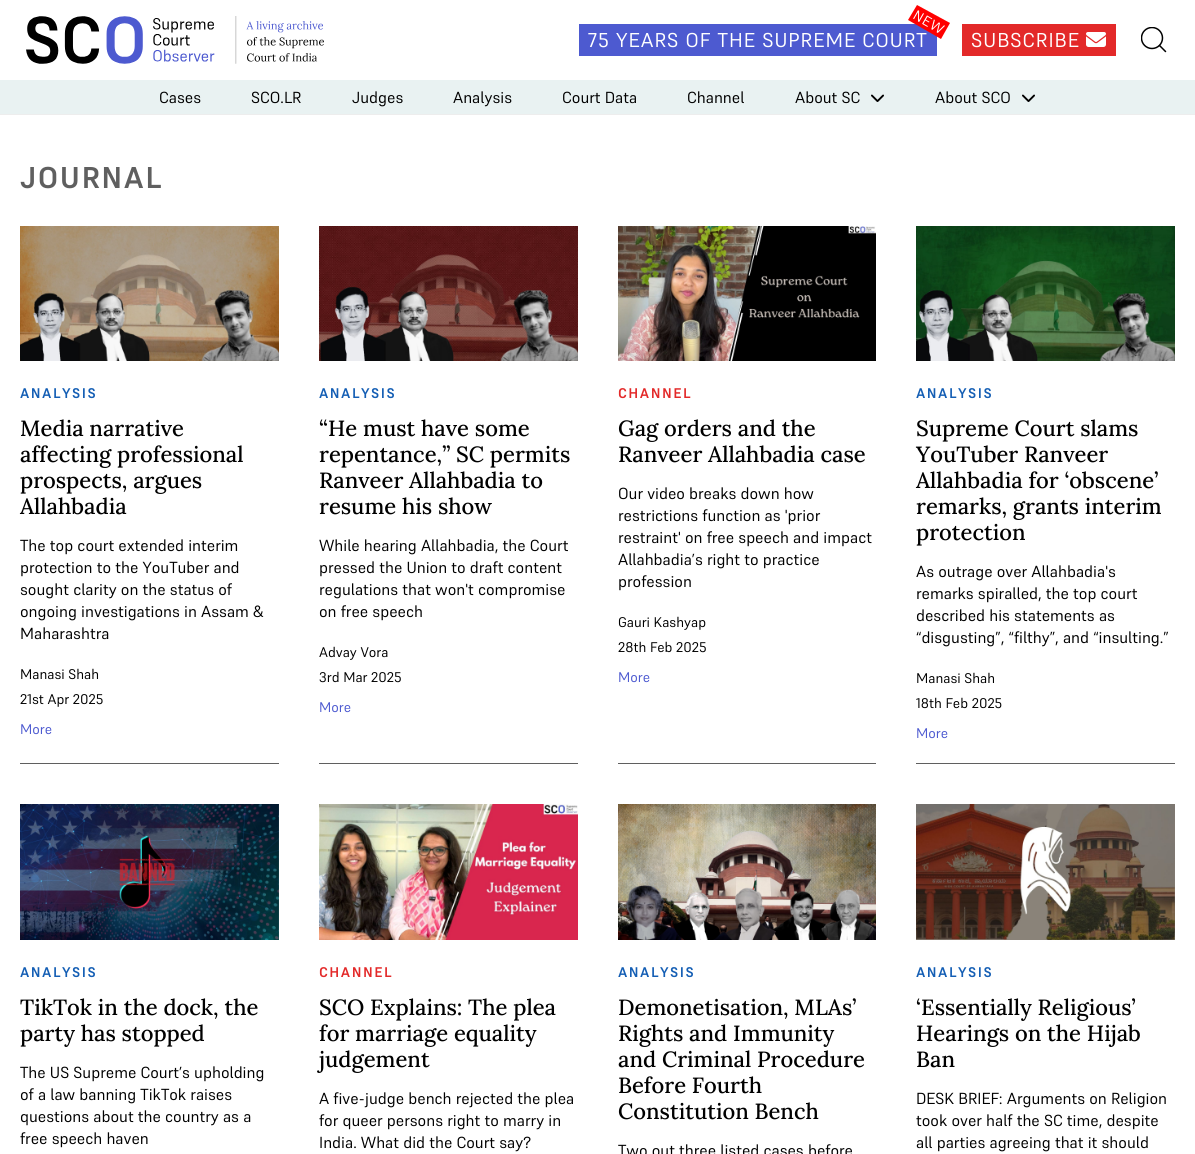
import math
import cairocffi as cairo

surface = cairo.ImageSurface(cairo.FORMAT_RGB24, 1195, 1154)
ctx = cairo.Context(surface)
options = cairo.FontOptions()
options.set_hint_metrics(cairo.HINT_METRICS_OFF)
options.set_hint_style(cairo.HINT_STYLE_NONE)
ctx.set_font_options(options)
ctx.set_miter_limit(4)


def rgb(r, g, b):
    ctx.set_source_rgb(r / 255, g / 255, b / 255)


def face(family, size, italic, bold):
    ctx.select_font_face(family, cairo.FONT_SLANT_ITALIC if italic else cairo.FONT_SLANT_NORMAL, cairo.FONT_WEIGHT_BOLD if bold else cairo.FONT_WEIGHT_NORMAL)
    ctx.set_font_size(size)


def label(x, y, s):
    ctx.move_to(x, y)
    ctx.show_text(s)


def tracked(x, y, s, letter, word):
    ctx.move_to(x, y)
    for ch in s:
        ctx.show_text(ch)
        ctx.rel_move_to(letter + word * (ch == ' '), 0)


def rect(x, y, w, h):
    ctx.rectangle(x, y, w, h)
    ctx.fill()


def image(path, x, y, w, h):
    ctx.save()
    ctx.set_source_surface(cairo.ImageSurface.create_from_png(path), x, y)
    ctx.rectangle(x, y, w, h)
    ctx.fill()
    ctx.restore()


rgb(255, 255, 255)
ctx.paint()
rgb(237, 237, 237)
rect(0, 114, 1195, 1)
image('image0.png', 26, 16, 298, 48)
rgb(77, 90, 208)
rect(579, 24, 358, 32)
face('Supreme', 20, 0, 0)
rgb(255, 255, 255)
tracked(588, 47, '75 YEARS OF THE SUPREME COURT', 1, 0)
rgb(255, 0, 0)
ctx.new_path()
ctx.move_to(917, 5)
ctx.line_to(950, 23)
ctx.line_to(941, 39)
ctx.line_to(908, 20)
ctx.close_path()
ctx.fill()
face('Supreme', 14, 0, 0)
rgb(255, 255, 255)
ctx.save()
ctx.translate(912, 18)
ctx.rotate(30 * math.pi / 180)
tracked(0, 0, 'NEW', 1, 0)
ctx.restore()
rgb(227, 41, 41)
rect(962, 24, 154, 32)
face('Supreme', 20, 0, 0)
rgb(255, 255, 255)
tracked(971, 47, 'SUBSCRIBE', 1, 0)
image('image1.png', 1086, 32, 20, 15)
ctx.save()
ctx.rectangle(1141, 27, 26, 26)
ctx.clip()
ctx.arc(1152, 38, 10.5, 0, 2 * math.pi)
rgb(0, 0, 0)
ctx.set_line_width(1.5)
ctx.stroke()
ctx.restore()
ctx.new_path()
ctx.move_to(1159.5, 45.5)
ctx.line_to(1165.5, 51.5)
rgb(0, 0, 0)
ctx.set_line_width(1.5)
ctx.set_line_cap(cairo.LINE_CAP_ROUND)
ctx.stroke()
rgb(233, 242, 242)
rect(0, 80, 1195, 34)
face('Supreme', 16, 0, 0)
rgb(0, 0, 0)
label(159, 103, 'Cases')
label(251, 103, 'SCO.LR')
label(352, 103, 'Judges')
label(453, 103, 'Analysis')
label(562, 103, 'Court Data')
label(687, 103, 'Channel')
label(795, 103, 'About SC')
image('image2.png', 871, 94, 13, 8)
label(935, 103, 'About SCO')
image('image2.png', 1022, 94, 13, 8)
face('Supreme', 30, 0, 1)
rgb(95, 95, 95)
tracked(20, 188, 'JOURNAL', 1.5, 0)
rect(20, 763, 259, 1)
image('image3.png', 20, 226, 259, 135)
face('Supreme', 14, 0, 1)
rgb(20, 94, 180)
tracked(20, 398, 'ANALYSIS', 1.5, 0)
face('Lora Medium', 22, 0, 0)
rgb(0, 0, 0)
label(20, 436, 'Media narrative')
label(20, 462, 'affecting professional')
label(20, 488, 'prospects, argues')
label(20, 514, 'Allahbadia')
face('Supreme', 16, 0, 0)
label(20, 551, 'The top court extended interim')
label(20, 573, 'protection to the YouTuber and')
label(20, 595, 'sought clarity on the status of')
label(20, 617, 'ongoing investigations in Assam &')
label(20, 639, 'Maharashtra')
face('Supreme', 14, 0, 0)
label(20, 679, 'Manasi Shah')
label(20, 704, '21st Apr 2025')
rgb(77, 90, 208)
label(20, 734, 'More')
rgb(95, 95, 95)
rect(319, 763, 259, 1)
image('image4.png', 319, 226, 259, 135)
face('Supreme', 14, 0, 1)
rgb(20, 94, 180)
tracked(319, 398, 'ANALYSIS', 1.5, 0)
face('Lora Medium', 22, 0, 0)
rgb(0, 0, 0)
label(319, 436, '“He must have some')
label(319, 462, 'repentance,” SC permits')
label(319, 488, 'Ranveer Allahbadia to')
label(319, 514, 'resume his show')
face('Supreme', 16, 0, 0)
label(319, 551, 'While hearing Allahbadia, the Court')
label(319, 573, 'pressed the Union to draft content')
label(319, 595, 'regulations that won\'t compromise')
label(319, 617, 'on free speech')
face('Supreme', 14, 0, 0)
label(319, 657, 'Advay Vora')
label(319, 682, '3rd Mar 2025')
rgb(77, 90, 208)
label(319, 712, 'More')
rgb(95, 95, 95)
rect(618, 763, 258, 1)
image('image5.png', 618, 226, 258, 135)
face('Supreme', 14, 0, 1)
rgb(227, 41, 41)
tracked(618, 398, 'CHANNEL', 1.5, 0)
face('Lora Medium', 22, 0, 0)
rgb(0, 0, 0)
label(618, 436, 'Gag orders and the')
label(618, 462, 'Ranveer Allahbadia case')
face('Supreme', 16, 0, 0)
label(618, 499, 'Our video breaks down how')
label(618, 521, 'restrictions function as \'prior')
label(618, 543, 'restraint\' on free speech and impact')
label(618, 565, 'Allahbadia’s right to practice')
label(618, 587, 'profession')
face('Supreme', 14, 0, 0)
label(618, 627, 'Gauri Kashyap')
label(618, 652, '28th Feb 2025')
rgb(77, 90, 208)
label(618, 682, 'More')
rgb(95, 95, 95)
rect(916, 763, 259, 1)
image('image6.png', 916, 226, 259, 135)
face('Supreme', 14, 0, 1)
rgb(20, 94, 180)
tracked(916, 398, 'ANALYSIS', 1.5, 0)
face('Lora Medium', 22, 0, 0)
rgb(0, 0, 0)
label(916, 436, 'Supreme Court slams')
label(916, 462, 'YouTuber Ranveer')
label(916, 488, 'Allahbadia for ‘obscene’')
label(916, 514, 'remarks, grants interim')
label(916, 540, 'protection')
face('Supreme', 16, 0, 0)
label(916, 577, 'As outrage over Allahbadia\'s')
label(916, 599, 'remarks spiralled, the top court')
label(916, 621, 'described his statements as')
label(916, 643, '“disgusting”, “filthy”, and “insulting.”')
face('Supreme', 14, 0, 0)
label(916, 683, 'Manasi Shah')
label(916, 708, '18th Feb 2025')
rgb(77, 90, 208)
label(916, 738, 'More')
image('image7.png', 20, 804, 259, 136)
face('Supreme', 14, 0, 1)
rgb(20, 94, 180)
tracked(20, 977, 'ANALYSIS', 1.5, 0)
face('Lora Medium', 22, 0, 0)
rgb(0, 0, 0)
label(20, 1015, 'TikTok in the dock, the')
label(20, 1041, 'party has stopped')
face('Supreme', 16, 0, 0)
label(20, 1078, 'The US Supreme Court’s upholding')
label(20, 1100, 'of a law banning TikTok raises')
label(20, 1122, 'questions about the country as a')
label(20, 1144, 'free speech haven')
image('image8.png', 319, 804, 259, 136)
face('Supreme', 14, 0, 1)
rgb(227, 41, 41)
tracked(319, 977, 'CHANNEL', 1.5, 0)
face('Lora Medium', 22, 0, 0)
rgb(0, 0, 0)
label(319, 1015, 'SCO Explains: The plea')
label(319, 1041, 'for marriage equality')
label(319, 1067, 'judgement')
face('Supreme', 16, 0, 0)
label(319, 1104, 'A five-judge bench rejected the plea')
label(319, 1126, 'for queer persons right to marry in')
label(319, 1148, 'India. What did the Court say?')
image('image9.png', 618, 804, 258, 136)
face('Supreme', 14, 0, 1)
rgb(20, 94, 180)
tracked(618, 977, 'ANALYSIS', 1.5, 0)
face('Lora Medium', 22, 0, 0)
rgb(0, 0, 0)
label(618, 1015, 'Demonetisation, MLAs’')
label(618, 1041, 'Rights and Immunity')
label(618, 1067, 'and Criminal Procedure')
label(618, 1093, 'Before Fourth')
label(618, 1119, 'Constitution Bench')
face('Supreme', 16, 0, 0)
label(618, 1156, 'Two out three listed cases before')
image('image10.png', 916, 804, 259, 136)
face('Supreme', 14, 0, 1)
rgb(20, 94, 180)
tracked(916, 977, 'ANALYSIS', 1.5, 0)
face('Lora Medium', 22, 0, 0)
rgb(0, 0, 0)
label(916, 1015, '‘Essentially Religious’')
label(916, 1041, 'Hearings on the Hijab')
label(916, 1067, 'Ban')
face('Supreme', 16, 0, 0)
label(916, 1104, 'DESK BRIEF: Arguments on Religion')
label(916, 1126, 'took over half the SC time, despite')
label(916, 1148, 'all parties agreeing that it should')
surface.write_to_png('render.png')
